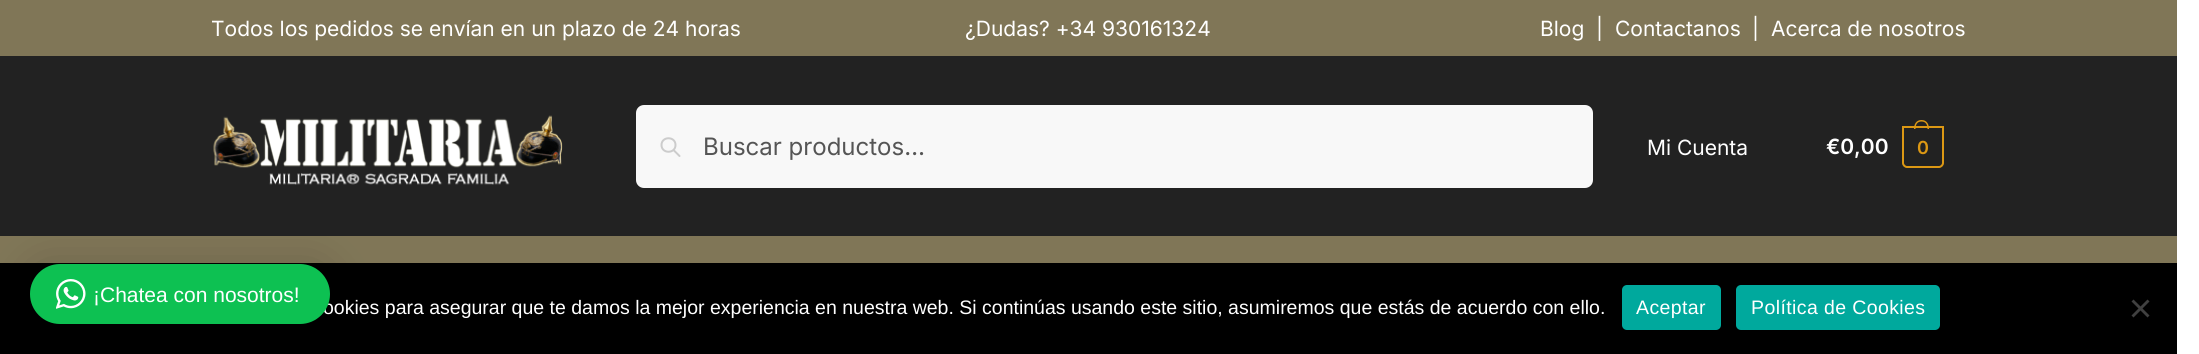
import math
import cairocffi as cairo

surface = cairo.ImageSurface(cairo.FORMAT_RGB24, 2199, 354)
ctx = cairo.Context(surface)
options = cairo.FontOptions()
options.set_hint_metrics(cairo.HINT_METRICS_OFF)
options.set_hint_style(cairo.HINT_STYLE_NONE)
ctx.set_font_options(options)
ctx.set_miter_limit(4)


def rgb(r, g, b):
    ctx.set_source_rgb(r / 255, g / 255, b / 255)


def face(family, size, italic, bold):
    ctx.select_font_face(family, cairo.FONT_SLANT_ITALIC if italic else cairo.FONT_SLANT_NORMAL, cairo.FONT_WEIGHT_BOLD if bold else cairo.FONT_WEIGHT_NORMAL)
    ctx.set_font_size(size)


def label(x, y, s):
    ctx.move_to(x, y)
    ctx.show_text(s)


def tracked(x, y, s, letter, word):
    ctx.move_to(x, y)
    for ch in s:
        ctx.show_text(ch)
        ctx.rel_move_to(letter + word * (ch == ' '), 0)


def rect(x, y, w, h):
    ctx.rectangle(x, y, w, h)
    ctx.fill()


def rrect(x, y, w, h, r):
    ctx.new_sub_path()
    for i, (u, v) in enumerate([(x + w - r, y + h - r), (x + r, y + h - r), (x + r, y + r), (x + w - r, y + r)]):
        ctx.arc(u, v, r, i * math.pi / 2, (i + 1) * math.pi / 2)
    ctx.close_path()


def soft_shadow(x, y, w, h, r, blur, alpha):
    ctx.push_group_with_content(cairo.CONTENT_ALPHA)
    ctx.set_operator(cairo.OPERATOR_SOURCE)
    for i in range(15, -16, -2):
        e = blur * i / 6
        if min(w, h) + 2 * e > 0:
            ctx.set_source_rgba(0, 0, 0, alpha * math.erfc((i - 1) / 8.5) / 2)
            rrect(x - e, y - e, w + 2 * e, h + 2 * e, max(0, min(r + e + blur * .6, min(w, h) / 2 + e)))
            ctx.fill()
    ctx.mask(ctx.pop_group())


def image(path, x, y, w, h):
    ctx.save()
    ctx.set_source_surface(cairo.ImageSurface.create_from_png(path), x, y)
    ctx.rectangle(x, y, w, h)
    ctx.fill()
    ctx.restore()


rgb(255, 255, 255)
ctx.paint()
rgb(128, 118, 87)
rect(0, 0, 2177, 56)
face('Inter', 21, 0, 0)
rgb(255, 255, 255)
label(211, 36, 'Todos los pedidos se envían en un plazo de 24 horas')
label(965, 36, '¿Dudas? +34 930161324')
label(1540, 36, 'Blog')
label(1596, 36, '|')
label(1615, 36, 'Contactanos')
label(1752, 36, '|')
label(1771, 36, 'Acerca de nosotros')
rgb(34, 34, 34)
rect(0, 56, 2177, 180)
image('image0.png', 213, 115, 350, 70)
rgb(248, 248, 248)
rrect(637, 106, 955, 81, 7)
ctx.fill_preserve()
ctx.stroke()
ctx.new_path()
ctx.move_to(679.5, 156)
ctx.line_to(673.5, 150)
ctx.move_to(675.5, 145)
ctx.curve_to(675.5, 154, 661.5, 154, 661.5, 145)
ctx.curve_to(661.5, 136, 675.5, 136, 675.5, 145)
ctx.close_path()
rgb(204, 204, 204)
ctx.set_line_cap(cairo.LINE_CAP_ROUND)
ctx.set_line_join(cairo.LINE_JOIN_ROUND)
ctx.stroke()
face('Inter', 24, 0, 0)
rgb(85, 85, 85)
label(703, 155, 'Buscar productos…')
face('Inter', 21, 0, 0)
rgb(255, 255, 255)
label(1647, 155, 'Mi Cuenta')
face('Inter SemiBold', 21, 0, 0)
label(1826, 154, '€0,00')
ctx.new_path()
ctx.move_to(1903, 127)
ctx.line_to(1943, 127)
ctx.line_to(1943, 163)
ctx.curve_to(1943, 165, 1941, 167, 1939, 167)
ctx.line_to(1907, 167)
ctx.curve_to(1905, 167, 1903, 165, 1903, 163)
ctx.close_path()
rgb(220, 152, 20)
ctx.set_line_cap(cairo.LINE_CAP_BUTT)
ctx.set_line_join(cairo.LINE_JOIN_MITER)
ctx.stroke()
ctx.set_fill_rule(cairo.FILL_RULE_EVEN_ODD)
ctx.new_path()
ctx.move_to(1921.5, 120)
ctx.curve_to(1927, 120, 1929, 124.5, 1929, 129)
ctx.line_to(1914, 129)
ctx.curve_to(1914, 124.5, 1916, 120, 1921.5, 120)
ctx.close_path()
ctx.move_to(1921.5, 121.5)
ctx.curve_to(1926, 121.5, 1927.5, 125, 1927.5, 129)
ctx.line_to(1915.5, 129)
ctx.curve_to(1915.5, 125, 1917, 121.5, 1921.5, 121.5)
ctx.close_path()
ctx.fill()
face('Inter SemiBold', 18, 0, 0)
tracked(1917, 154, '0', -1, 0)
rgb(128, 118, 87)
rect(0, 236, 2177, 27)
rgb(0, 0, 0)
rect(0, 263, 2177, 91)
rgb(0, 0, 0)
soft_shadow(30, 267, 300, 60, 30, 24, 0.16)
face('Liberation Sans', 19.5, 0, 0)
rgb(255, 255, 255)
label(323, 314, 'ookies para asegurar que te damos la mejor experiencia en nuestra web. Si continúas usando este sitio, asumiremos que estás de acuerdo con ello.')
rgb(13, 193, 82)
rrect(30, 264, 300, 60, 30)
ctx.fill()
image('image1.png', 56, 279, 30, 30)
face('Liberation Sans', 21, 0, 0)
rgb(255, 255, 255)
label(93, 302, '¡Chatea con nosotros!')
rgb(0, 169, 157)
rrect(1622, 285, 99, 45, 5)
ctx.fill()
face('Liberation Sans', 19.5, 0, 0)
rgb(255, 255, 255)
tracked(1636, 314, 'Aceptar', 0.4, 0)
rgb(0, 169, 157)
rrect(1736, 285, 204, 45, 5)
ctx.fill()
rgb(255, 255, 255)
tracked(1751, 314, 'Política de Cookies', 0.4, 0)
rgb(64, 64, 64)
ctx.set_fill_rule(cairo.FILL_RULE_WINDING)
ctx.new_path()
ctx.move_to(2147.5, 299.5)
ctx.line_to(2149.5, 301.5)
ctx.line_to(2133.5, 317.5)
ctx.line_to(2131.5, 315.5)
ctx.close_path()
ctx.fill()
ctx.new_path()
ctx.move_to(2131.5, 301.5)
ctx.line_to(2133.5, 299.5)
ctx.line_to(2149.5, 315.5)
ctx.line_to(2147.5, 317.5)
ctx.close_path()
ctx.fill()
surface.write_to_png('render.png')
